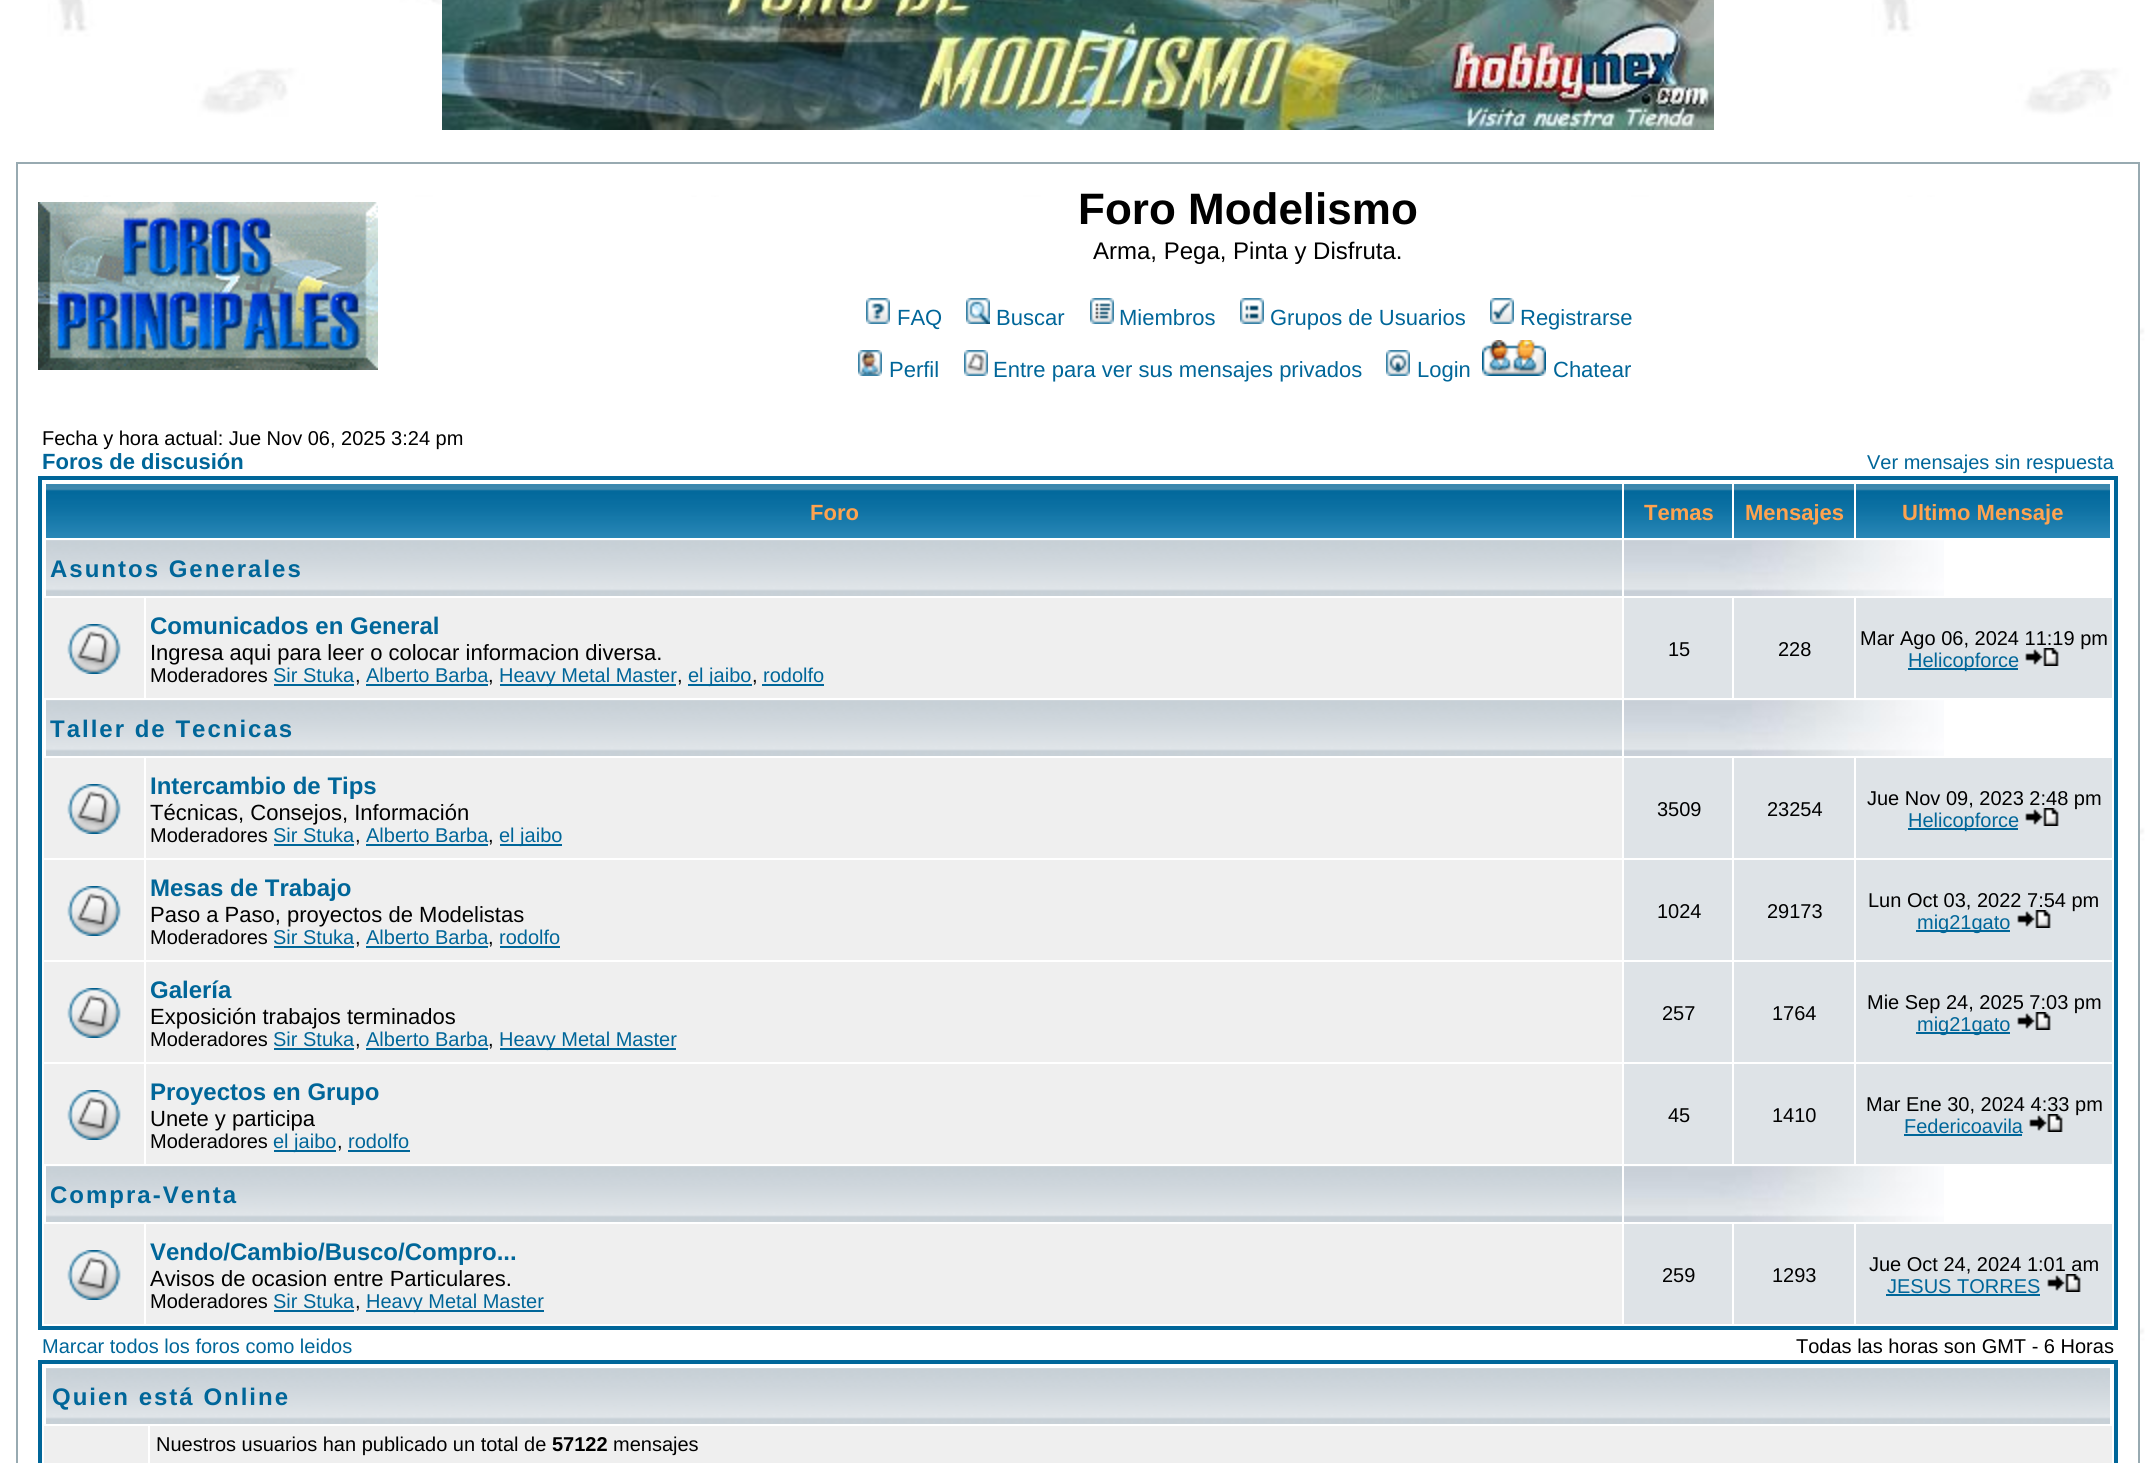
import math
import cairocffi as cairo

surface = cairo.ImageSurface(cairo.FORMAT_RGB24, 2155, 1463)
ctx = cairo.Context(surface)
options = cairo.FontOptions()
options.set_hint_metrics(cairo.HINT_METRICS_OFF)
options.set_hint_style(cairo.HINT_STYLE_NONE)
ctx.set_font_options(options)
ctx.set_miter_limit(4)


def rgb(r, g, b):
    ctx.set_source_rgb(r / 255, g / 255, b / 255)


def face(family, size, italic, bold):
    ctx.select_font_face(family, cairo.FONT_SLANT_ITALIC if italic else cairo.FONT_SLANT_NORMAL, cairo.FONT_WEIGHT_BOLD if bold else cairo.FONT_WEIGHT_NORMAL)
    ctx.set_font_size(size)


def label(x, y, s):
    ctx.move_to(x, y)
    ctx.show_text(s)


def tracked(x, y, s, letter, word):
    ctx.move_to(x, y)
    for ch in s:
        ctx.show_text(ch)
        ctx.rel_move_to(letter + word * (ch == ' '), 0)


def rect(x, y, w, h):
    ctx.rectangle(x, y, w, h)
    ctx.fill()


def image(path, x, y, w, h):
    ctx.save()
    ctx.set_source_surface(cairo.ImageSurface.create_from_png(path), x, y)
    ctx.rectangle(x, y, w, h)
    ctx.fill()
    ctx.restore()


rgb(255, 255, 255)
ctx.paint()
image('image0.png', 0, 0, 2155, 1463)
image('image1.png', 442, 0, 1272, 130)
rgb(255, 255, 255)
rect(32, 197, 2106, 1266)
ctx.rectangle(17, 163, 2122, 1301)
rgb(152, 170, 177)
ctx.stroke()
image('image2.png', 38, 202, 340, 168)
face('Liberation Sans', 44, 0, 1)
rgb(0, 0, 0)
label(1078, 224, 'Foro Modelismo')
face('Liberation Sans', 24, 0, 0)
label(1093, 259, 'Arma, Pega, Pinta y Disfruta.')
image('image3.png', 866, 298, 24, 26)
face('Liberation Sans', 22, 0, 0)
rgb(0, 102, 153)
label(897, 325, 'FAQ')
image('image4.png', 966, 298, 24, 26)
label(996, 325, 'Buscar')
image('image5.png', 1090, 298, 24, 26)
label(1119, 325, 'Miembros')
image('image6.png', 1240, 298, 24, 26)
label(1270, 325, 'Grupos de Usuarios')
image('image7.png', 1490, 298, 24, 26)
label(1520, 325, 'Registrarse')
image('image8.png', 858, 350, 24, 26)
label(889, 377, 'Perfil')
image('image9.png', 964, 350, 24, 26)
label(993, 377, 'Entre para ver sus mensajes privados')
image('image10.png', 1386, 350, 24, 26)
label(1417, 377, 'Login')
image('image11.png', 1482, 340, 64, 36)
label(1553, 377, 'Chatear')
face('Liberation Sans', 20, 0, 0)
rgb(0, 0, 0)
label(42, 445, 'Fecha y hora actual: Jue Nov 06, 2025 3:24 pm')
face('Liberation Sans', 22, 0, 1)
rgb(0, 102, 153)
label(42, 469, 'Foros de discusión')
face('Liberation Sans', 20, 0, 0)
label(1867, 469, 'Ver mensajes sin respuesta')
ctx.rectangle(40, 478, 2076, 850)
ctx.set_line_width(4)
ctx.stroke()
image('image12.png', 46, 484, 1576, 54)
face('Liberation Sans', 22, 0, 1)
rgb(255, 163, 79)
label(810, 520, 'Foro')
image('image13.png', 1624, 484, 108, 54)
label(1644, 520, 'Temas')
image('image14.png', 1734, 484, 120, 54)
label(1745, 520, 'Mensajes')
image('image15.png', 1856, 484, 254, 54)
label(1902, 520, 'Ultimo Mensaje')
image('image16.png', 46, 540, 1576, 56)
face('Liberation Sans', 24, 0, 1)
rgb(0, 102, 153)
tracked(50, 577, 'Asuntos Generales', 2, 0)
image('image17.png', 1624, 540, 320, 56)
rgb(239, 239, 239)
rect(44, 598, 100, 100)
image('image18.png', 67, 624, 54, 50)
rect(146, 598, 1476, 100)
rgb(0, 102, 153)
label(150, 634, 'Comunicados en General')
face('Liberation Sans', 22, 0, 0)
rgb(0, 0, 0)
label(150, 660, 'Ingresa aqui para leer o colocar informacion diversa.')
face('Liberation Sans', 20, 0, 0)
label(150, 682, 'Moderadores')
rgb(0, 102, 153)
label(273, 682, 'Sir Stuka')
rgb(0, 0, 0)
label(355, 682, ',')
rgb(0, 102, 153)
rect(274, 684, 80, 2)
label(366, 682, 'Alberto Barba')
rgb(0, 0, 0)
label(488, 682, ',')
rgb(0, 102, 153)
rect(366, 684, 122, 2)
rect(500, 684, 176, 2)
label(499, 682, 'Heavy Metal Master')
rgb(0, 0, 0)
label(677, 682, ',')
rgb(0, 102, 153)
rect(688, 684, 64, 2)
label(688, 682, 'el jaibo')
rgb(0, 0, 0)
label(752, 682, ',')
rgb(0, 102, 153)
rect(762, 684, 62, 2)
label(763, 682, 'rodolfo')
rgb(222, 227, 231)
rect(1624, 598, 108, 100)
rgb(0, 0, 0)
label(1668, 656, '15')
rgb(222, 227, 231)
rect(1734, 598, 120, 100)
rgb(0, 0, 0)
label(1778, 656, '228')
rgb(222, 227, 231)
rect(1856, 598, 256, 100)
rgb(0, 0, 0)
label(1860, 645, 'Mar Ago 06, 2024 11:19 pm')
rgb(0, 102, 153)
rect(1908, 668, 110, 2)
label(1908, 667, 'Helicopforce')
image('image19.png', 2025, 648, 34, 18)
image('image16.png', 46, 700, 1576, 56)
face('Liberation Sans', 24, 0, 1)
tracked(50, 737, 'Taller de Tecnicas', 2, 0)
image('image17.png', 1624, 700, 320, 56)
rgb(239, 239, 239)
rect(44, 758, 100, 100)
image('image18.png', 67, 784, 54, 50)
rect(146, 758, 1476, 100)
rgb(0, 102, 153)
label(150, 794, 'Intercambio de Tips')
face('Liberation Sans', 22, 0, 0)
rgb(0, 0, 0)
label(150, 820, 'Técnicas, Consejos, Información')
face('Liberation Sans', 20, 0, 0)
label(150, 842, 'Moderadores')
rgb(0, 102, 153)
label(273, 842, 'Sir Stuka')
rgb(0, 0, 0)
label(355, 842, ',')
rgb(0, 102, 153)
rect(274, 844, 80, 2)
label(366, 842, 'Alberto Barba')
rgb(0, 0, 0)
label(488, 842, ',')
rgb(0, 102, 153)
rect(366, 844, 122, 2)
rect(500, 844, 62, 2)
label(499, 842, 'el jaibo')
rgb(222, 227, 231)
rect(1624, 758, 108, 100)
rgb(0, 0, 0)
label(1657, 816, '3509')
rgb(222, 227, 231)
rect(1734, 758, 120, 100)
rgb(0, 0, 0)
label(1767, 816, '23254')
rgb(222, 227, 231)
rect(1856, 758, 256, 100)
rgb(0, 0, 0)
label(1867, 805, 'Jue Nov 09, 2023 2:48 pm')
rgb(0, 102, 153)
rect(1908, 828, 110, 2)
label(1908, 827, 'Helicopforce')
image('image19.png', 2025, 808, 34, 18)
rgb(239, 239, 239)
rect(44, 860, 100, 100)
image('image18.png', 67, 886, 54, 50)
rect(146, 860, 1476, 100)
face('Liberation Sans', 24, 0, 1)
rgb(0, 102, 153)
label(150, 896, 'Mesas de Trabajo')
face('Liberation Sans', 22, 0, 0)
rgb(0, 0, 0)
label(150, 922, 'Paso a Paso, proyectos de Modelistas')
face('Liberation Sans', 20, 0, 0)
label(150, 944, 'Moderadores')
rgb(0, 102, 153)
label(273, 944, 'Sir Stuka')
rgb(0, 0, 0)
label(355, 944, ',')
rgb(0, 102, 153)
rect(274, 946, 80, 2)
label(366, 944, 'Alberto Barba')
rgb(0, 0, 0)
label(488, 944, ',')
rgb(0, 102, 153)
rect(366, 946, 122, 2)
rect(500, 946, 60, 2)
label(499, 944, 'rodolfo')
rgb(222, 227, 231)
rect(1624, 860, 108, 100)
rgb(0, 0, 0)
label(1657, 918, '1024')
rgb(222, 227, 231)
rect(1734, 860, 120, 100)
rgb(0, 0, 0)
label(1767, 918, '29173')
rgb(222, 227, 231)
rect(1856, 860, 256, 100)
rgb(0, 0, 0)
label(1868, 907, 'Lun Oct 03, 2022 7:54 pm')
rgb(0, 102, 153)
rect(1916, 930, 94, 2)
label(1917, 929, 'mig21gato')
image('image19.png', 2017, 910, 34, 18)
rgb(239, 239, 239)
rect(44, 962, 100, 100)
image('image18.png', 67, 988, 54, 50)
rect(146, 962, 1476, 100)
face('Liberation Sans', 24, 0, 1)
rgb(0, 102, 153)
label(150, 998, 'Galería')
face('Liberation Sans', 22, 0, 0)
rgb(0, 0, 0)
label(150, 1024, 'Exposición trabajos terminados')
face('Liberation Sans', 20, 0, 0)
label(150, 1046, 'Moderadores')
rgb(0, 102, 153)
label(273, 1046, 'Sir Stuka')
rgb(0, 0, 0)
label(355, 1046, ',')
rgb(0, 102, 153)
rect(274, 1048, 80, 2)
label(366, 1046, 'Alberto Barba')
rgb(0, 0, 0)
label(488, 1046, ',')
rgb(0, 102, 153)
rect(366, 1048, 122, 2)
rect(500, 1048, 176, 2)
label(499, 1046, 'Heavy Metal Master')
rgb(222, 227, 231)
rect(1624, 962, 108, 100)
rgb(0, 0, 0)
label(1662, 1020, '257')
rgb(222, 227, 231)
rect(1734, 962, 120, 100)
rgb(0, 0, 0)
label(1772, 1020, '1764')
rgb(222, 227, 231)
rect(1856, 962, 256, 100)
rgb(0, 0, 0)
label(1867, 1009, 'Mie Sep 24, 2025 7:03 pm')
rgb(0, 102, 153)
rect(1916, 1032, 94, 2)
label(1917, 1031, 'mig21gato')
image('image19.png', 2017, 1012, 34, 18)
rgb(239, 239, 239)
rect(44, 1064, 100, 100)
image('image18.png', 67, 1090, 54, 50)
rect(146, 1064, 1476, 100)
face('Liberation Sans', 24, 0, 1)
rgb(0, 102, 153)
label(150, 1100, 'Proyectos en Grupo')
face('Liberation Sans', 22, 0, 0)
rgb(0, 0, 0)
label(150, 1126, 'Unete y participa')
face('Liberation Sans', 20, 0, 0)
label(150, 1148, 'Moderadores')
rgb(0, 102, 153)
rect(274, 1150, 62, 2)
label(273, 1148, 'el jaibo')
rgb(0, 0, 0)
label(337, 1148, ',')
rgb(0, 102, 153)
rect(348, 1150, 62, 2)
label(348, 1148, 'rodolfo')
rgb(222, 227, 231)
rect(1624, 1064, 108, 100)
rgb(0, 0, 0)
label(1668, 1122, '45')
rgb(222, 227, 231)
rect(1734, 1064, 120, 100)
rgb(0, 0, 0)
label(1772, 1122, '1410')
rgb(222, 227, 231)
rect(1856, 1064, 256, 100)
rgb(0, 0, 0)
label(1866, 1111, 'Mar Ene 30, 2024 4:33 pm')
rgb(0, 102, 153)
label(1904, 1133, 'Federicoavila')
rect(1904, 1134, 118, 2)
image('image19.png', 2029, 1114, 34, 18)
image('image16.png', 46, 1166, 1576, 56)
face('Liberation Sans', 24, 0, 1)
tracked(50, 1203, 'Compra-Venta', 2, 0)
image('image17.png', 1624, 1166, 320, 56)
rgb(239, 239, 239)
rect(44, 1224, 100, 100)
image('image18.png', 67, 1250, 54, 50)
rect(146, 1224, 1476, 100)
rgb(0, 102, 153)
label(150, 1260, 'Vendo/Cambio/Busco/Compro...')
face('Liberation Sans', 22, 0, 0)
rgb(0, 0, 0)
label(150, 1286, 'Avisos de ocasion entre Particulares.')
face('Liberation Sans', 20, 0, 0)
label(150, 1308, 'Moderadores')
rgb(0, 102, 153)
label(273, 1308, 'Sir Stuka')
rgb(0, 0, 0)
label(355, 1308, ',')
rgb(0, 102, 153)
rect(274, 1310, 80, 2)
rect(366, 1310, 178, 2)
label(366, 1308, 'Heavy Metal Master')
rgb(222, 227, 231)
rect(1624, 1224, 108, 100)
rgb(0, 0, 0)
label(1662, 1282, '259')
rgb(222, 227, 231)
rect(1734, 1224, 120, 100)
rgb(0, 0, 0)
label(1772, 1282, '1293')
rgb(222, 227, 231)
rect(1856, 1224, 256, 100)
rgb(0, 0, 0)
label(1869, 1271, 'Jue Oct 24, 2024 1:01 am')
rgb(0, 102, 153)
label(1887, 1293, 'JESUS TORRES')
rect(1886, 1294, 154, 2)
image('image19.png', 2047, 1274, 34, 18)
label(42, 1353, 'Marcar todos los foros como leidos')
rgb(0, 0, 0)
label(1796, 1353, 'Todas las horas son GMT - 6 Horas')
ctx.rectangle(40, 1362, 2076, 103)
rgb(0, 102, 153)
ctx.stroke()
image('image20.png', 46, 1368, 2064, 56)
face('Liberation Sans', 24, 0, 1)
tracked(52, 1405, 'Quien está Online', 2, 0)
rgb(239, 239, 239)
rect(44, 1426, 104, 37)
rect(150, 1426, 1962, 37)
face('Liberation Sans', 20, 0, 0)
rgb(0, 0, 0)
label(156, 1451, 'Nuestros usuarios han publicado un total de')
face('Liberation Sans', 20, 0, 1)
label(552, 1451, '57122')
face('Liberation Sans', 20, 0, 0)
label(613, 1451, 'mensajes')
surface.write_to_png('render.png')
